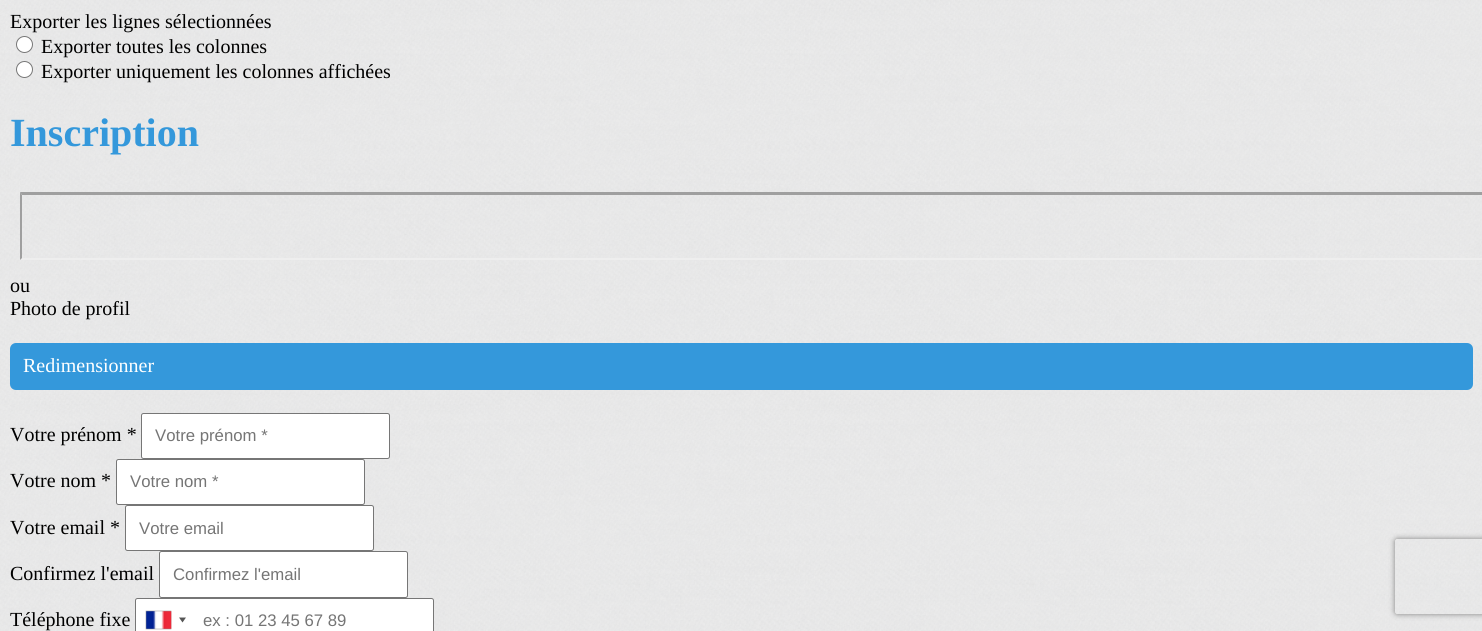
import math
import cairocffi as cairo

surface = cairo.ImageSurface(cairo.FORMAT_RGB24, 1482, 631)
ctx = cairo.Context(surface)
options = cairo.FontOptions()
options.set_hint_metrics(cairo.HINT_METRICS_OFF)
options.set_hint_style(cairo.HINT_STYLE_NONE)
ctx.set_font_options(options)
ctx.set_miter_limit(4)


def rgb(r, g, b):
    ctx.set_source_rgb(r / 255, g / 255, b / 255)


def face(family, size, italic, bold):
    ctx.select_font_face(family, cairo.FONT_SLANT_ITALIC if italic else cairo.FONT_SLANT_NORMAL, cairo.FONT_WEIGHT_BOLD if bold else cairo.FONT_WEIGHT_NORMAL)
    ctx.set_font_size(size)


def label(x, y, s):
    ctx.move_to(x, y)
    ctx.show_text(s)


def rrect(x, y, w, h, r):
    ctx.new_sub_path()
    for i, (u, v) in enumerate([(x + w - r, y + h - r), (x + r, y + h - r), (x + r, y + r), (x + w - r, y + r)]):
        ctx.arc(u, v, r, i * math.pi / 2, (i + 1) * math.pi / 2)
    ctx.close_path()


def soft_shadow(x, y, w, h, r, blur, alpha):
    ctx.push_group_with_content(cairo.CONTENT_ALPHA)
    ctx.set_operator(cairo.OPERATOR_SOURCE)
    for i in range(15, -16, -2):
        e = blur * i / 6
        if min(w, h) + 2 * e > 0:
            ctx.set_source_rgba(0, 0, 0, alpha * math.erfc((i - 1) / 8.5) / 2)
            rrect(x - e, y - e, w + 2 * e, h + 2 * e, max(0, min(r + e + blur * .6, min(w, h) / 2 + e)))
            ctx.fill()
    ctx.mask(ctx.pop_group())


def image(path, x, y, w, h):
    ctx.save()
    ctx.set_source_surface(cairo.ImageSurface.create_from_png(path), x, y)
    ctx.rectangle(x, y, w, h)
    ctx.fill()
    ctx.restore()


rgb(238, 238, 238)
ctx.paint()
image('image0.png', 0, 0, 1482, 631)
face('Liberation Serif', 20, 0, 0)
rgb(0, 0, 0)
label(10, 28, 'Exporter les lignes sélectionnées')
rgb(255, 255, 255)
ctx.new_path()
ctx.arc(24.5, 44.5, 8, 0, 2 * math.pi)
ctx.fill_preserve()
rgb(118, 118, 118)
ctx.set_line_width(1)
ctx.stroke()
rgb(0, 0, 0)
label(41, 53, 'Exporter toutes les colonnes')
rgb(255, 255, 255)
ctx.new_path()
ctx.arc(24.5, 69.5, 8, 0, 2 * math.pi)
ctx.fill_preserve()
rgb(118, 118, 118)
ctx.stroke()
rgb(0, 0, 0)
label(41, 78, 'Exporter uniquement les colonnes affichées')
face('Liberation Serif', 40, 0, 1)
rgb(52, 152, 219)
label(10, 146, 'Inscription')
rgb(159, 159, 159)
ctx.new_path()
ctx.move_to(20, 192)
ctx.line_to(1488, 192)
ctx.line_to(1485, 195)
ctx.line_to(22, 195)
ctx.close_path()
ctx.fill()
rgb(238, 238, 238)
ctx.new_path()
ctx.move_to(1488, 260)
ctx.line_to(20, 260)
ctx.line_to(22, 258)
ctx.line_to(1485, 258)
ctx.close_path()
ctx.fill()
rgb(159, 159, 159)
ctx.new_path()
ctx.move_to(20, 260)
ctx.line_to(20, 192)
ctx.line_to(22, 195)
ctx.line_to(22, 258)
ctx.close_path()
ctx.fill()
face('Liberation Serif', 20, 0, 0)
rgb(0, 0, 0)
label(10, 292, 'ou')
label(10, 315, 'Photo de profil')
rgb(52, 152, 219)
rrect(10, 343, 1463, 47, 6)
ctx.fill()
rgb(255, 255, 255)
label(23, 372, 'Redimensionner')
rgb(0, 0, 0)
label(10, 441, 'Votre prénom *')
rgb(255, 255, 255)
rrect(141.5, 413.5, 248, 45, 2)
ctx.fill_preserve()
rgb(118, 118, 118)
ctx.stroke()
face('Liberation Sans', 16.75, 0, 0)
rgb(117, 117, 117)
label(155, 441, 'Votre prénom *')
face('Liberation Serif', 20, 0, 0)
rgb(0, 0, 0)
label(10, 487, 'Votre nom *')
rgb(255, 255, 255)
rrect(116.5, 459.5, 248, 45, 2)
ctx.fill_preserve()
rgb(118, 118, 118)
ctx.stroke()
face('Liberation Sans', 16.75, 0, 0)
rgb(117, 117, 117)
label(130, 487, 'Votre nom *')
face('Liberation Serif', 20, 0, 0)
rgb(0, 0, 0)
label(10, 534, 'Votre email *')
rgb(255, 255, 255)
rrect(125.5, 505.5, 248, 45, 2)
ctx.fill_preserve()
rgb(118, 118, 118)
ctx.stroke()
face('Liberation Sans', 16.75, 0, 0)
rgb(117, 117, 117)
label(139, 534, 'Votre email')
face('Liberation Serif', 20, 0, 0)
rgb(0, 0, 0)
label(10, 580, 'Confirmez l\'email')
rgb(255, 255, 255)
rrect(159.5, 551.5, 248, 46, 2)
ctx.fill_preserve()
rgb(118, 118, 118)
ctx.stroke()
face('Liberation Sans', 16.75, 0, 0)
rgb(117, 117, 117)
label(173, 580, 'Confirmez l\'email')
face('Liberation Serif', 20, 0, 0)
rgb(0, 0, 0)
label(10, 626, 'Téléphone fixe')
rgb(255, 255, 255)
rrect(135.5, 598.5, 298, 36, 2)
ctx.fill_preserve()
rgb(118, 118, 118)
ctx.stroke()
rgb(136, 136, 136)
soft_shadow(146, 611, 25, 18, 0, 0.5, 1)
image('image1.png', 146, 611, 26, 18)
rgb(85, 85, 85)
ctx.new_path()
ctx.move_to(179, 617.5)
ctx.line_to(186, 617.5)
ctx.line_to(182.5, 622.5)
ctx.close_path()
ctx.fill()
face('Liberation Sans', 16.75, 0, 0)
rgb(117, 117, 117)
label(203, 626, 'ex : 01 23 45 67 89')
ctx.save()
ctx.set_fill_rule(cairo.FILL_RULE_EVEN_ODD)
ctx.new_path()
ctx.move_to(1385, 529)
ctx.line_to(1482, 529)
ctx.line_to(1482, 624)
ctx.line_to(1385, 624)
ctx.close_path()
ctx.move_to(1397.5, 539)
ctx.line_to(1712.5, 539)
ctx.curve_to(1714, 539, 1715, 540, 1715, 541.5)
ctx.line_to(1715, 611.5)
ctx.curve_to(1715, 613, 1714, 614, 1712.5, 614)
ctx.line_to(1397.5, 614)
ctx.curve_to(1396, 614, 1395, 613, 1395, 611.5)
ctx.line_to(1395, 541.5)
ctx.curve_to(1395, 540, 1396, 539, 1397.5, 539)
ctx.close_path()
ctx.clip()
rgb(128, 128, 128)
soft_shadow(1395, 539, 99, 75, 2.5, 3, 1)
ctx.restore()
surface.write_to_png('render.png')
